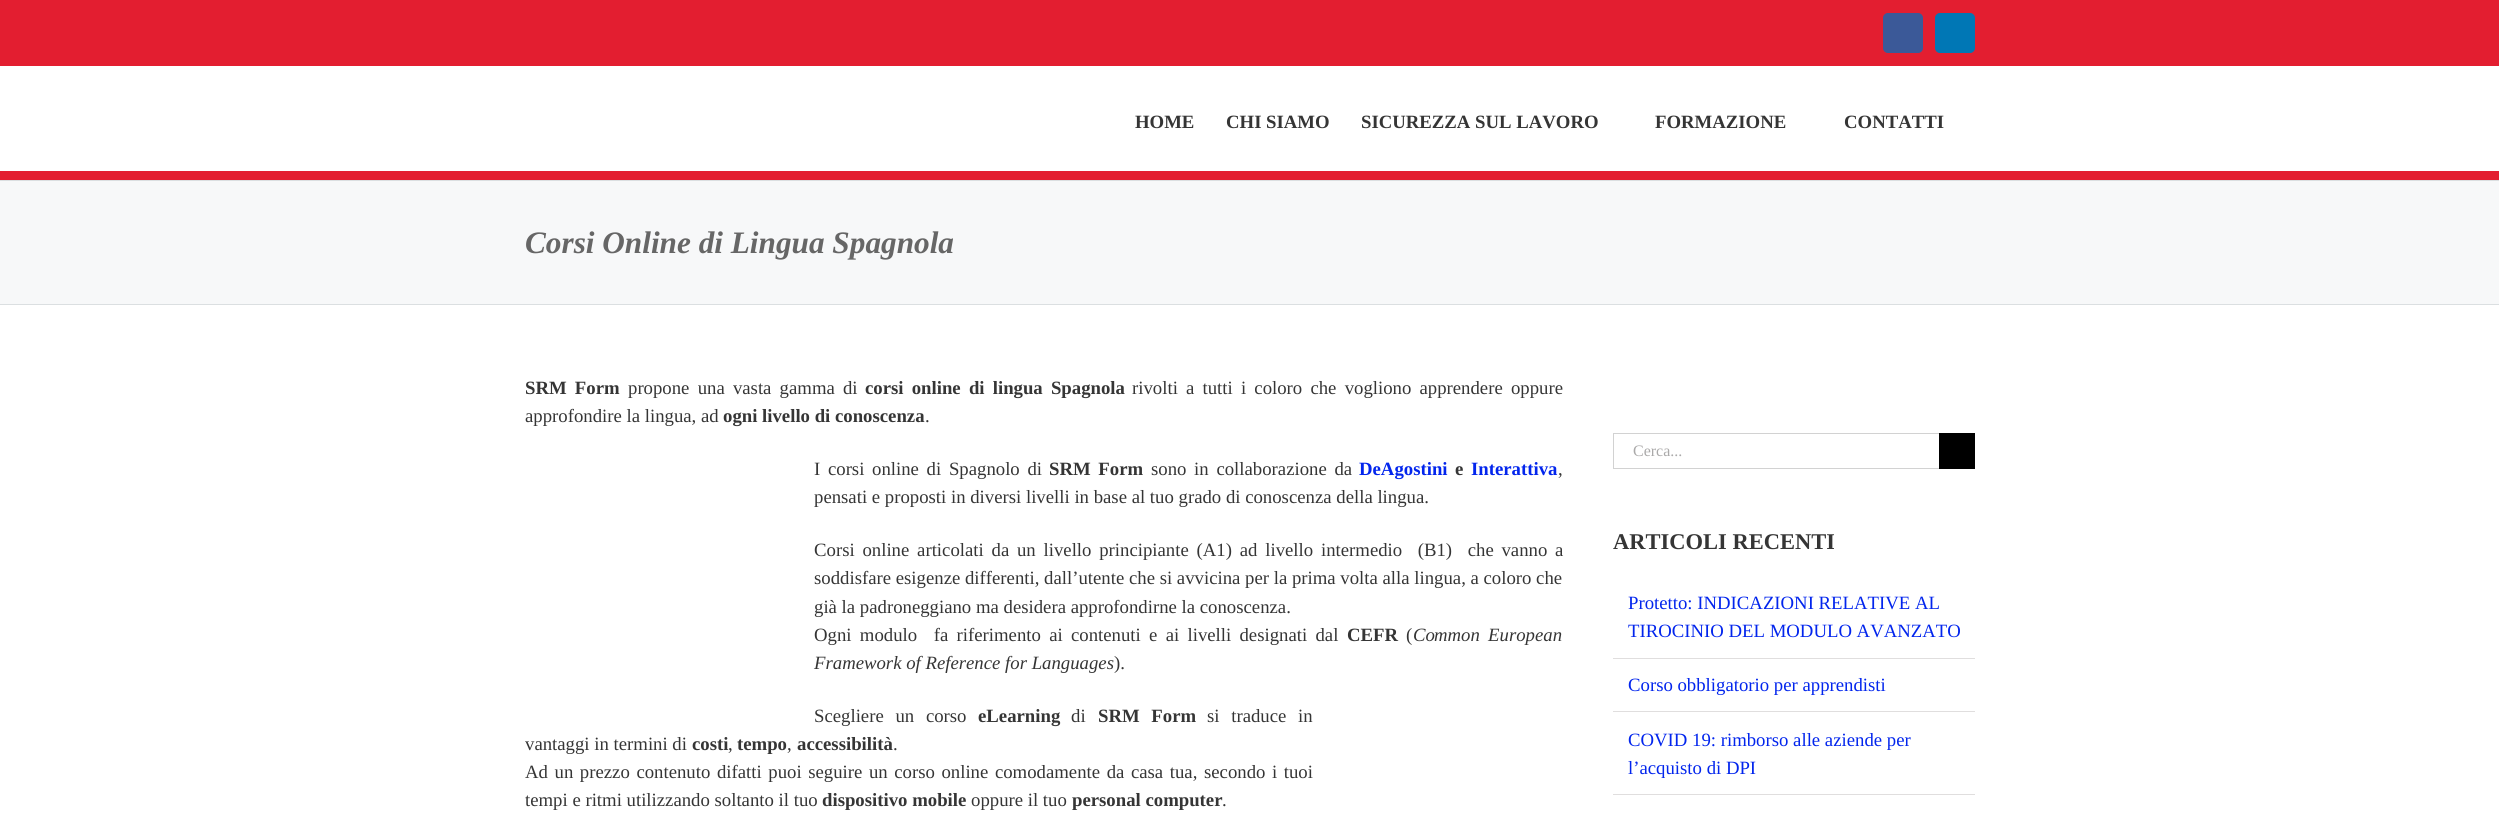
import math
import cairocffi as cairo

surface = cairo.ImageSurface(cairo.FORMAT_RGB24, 2499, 827)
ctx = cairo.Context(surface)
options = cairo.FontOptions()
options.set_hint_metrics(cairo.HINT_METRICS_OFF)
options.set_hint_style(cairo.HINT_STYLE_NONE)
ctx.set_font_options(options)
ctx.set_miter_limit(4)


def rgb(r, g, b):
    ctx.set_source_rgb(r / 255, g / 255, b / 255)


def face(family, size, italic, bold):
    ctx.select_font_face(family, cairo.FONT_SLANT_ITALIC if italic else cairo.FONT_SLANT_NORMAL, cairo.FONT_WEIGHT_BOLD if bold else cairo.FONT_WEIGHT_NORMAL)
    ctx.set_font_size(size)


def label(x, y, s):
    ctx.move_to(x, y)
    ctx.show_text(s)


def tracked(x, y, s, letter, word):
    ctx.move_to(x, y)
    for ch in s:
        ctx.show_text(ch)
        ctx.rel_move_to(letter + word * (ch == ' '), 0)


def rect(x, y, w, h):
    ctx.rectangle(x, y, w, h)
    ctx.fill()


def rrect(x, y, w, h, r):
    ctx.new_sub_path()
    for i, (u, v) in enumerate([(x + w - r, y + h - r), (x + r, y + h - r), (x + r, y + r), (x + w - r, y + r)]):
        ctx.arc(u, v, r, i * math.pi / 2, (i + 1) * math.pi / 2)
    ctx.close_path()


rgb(255, 255, 255)
ctx.paint()
rgb(227, 30, 48)
rect(0, 0, 2499, 66)
rgb(59, 89, 152)
rrect(1883.5, 13.5, 39, 39, 4.5)
ctx.fill_preserve()
ctx.set_line_width(1)
ctx.stroke()
rgb(0, 119, 181)
rrect(1935.5, 13.5, 39, 39, 4.5)
ctx.fill_preserve()
ctx.stroke()
rgb(227, 30, 48)
rect(0, 171, 2499, 9)
face('Liberation Serif', 18.75, 0, 1)
rgb(53, 53, 53)
label(1135, 128, 'HOME')
label(1226, 128, 'CHI SIAMO')
label(1361, 128, 'SICUREZZA SUL LAVORO')
label(1655, 128, 'FORMAZIONE')
label(1844, 128, 'CONTATTI')
rgb(247, 248, 249)
rect(0, 181, 2499, 123)
rgb(219, 223, 225)
rect(0, 180, 2499, 1)
rect(0, 304, 2499, 1)
face('Liberation Serif', 31.25, 1, 1)
rgb(102, 102, 102)
label(525, 253, 'Corsi Online di Lingua Spagnola')
face('Liberation Serif', 18.75, 0, 1)
rgb(53, 53, 53)
tracked(525, 394, 'SRM Form', 0, 3.5)
face('Liberation Serif', 18.75, 0, 0)
tracked(628, 394, 'propone una vasta gamma di', 0, 3.5)
face('Liberation Serif', 18.75, 0, 1)
tracked(865, 394, 'corsi online di lingua Spagnola', 0, 3.5)
face('Liberation Serif', 18.75, 0, 0)
tracked(1132, 394, 'rivolti a tutti i coloro che vogliono apprendere oppure', 0, 3.5)
label(525, 422, 'approfondire la lingua, ad')
face('Liberation Serif', 18.75, 0, 1)
label(723, 422, 'ogni livello di conoscenza')
face('Liberation Serif', 18.75, 0, 0)
label(925, 422, '.')
tracked(814, 475, 'I corsi online di Spagnolo di', 0, 3)
face('Liberation Serif', 18.75, 0, 1)
tracked(1049, 475, 'SRM Form', 0, 3)
face('Liberation Serif', 18.75, 0, 0)
tracked(1151, 475, 'sono in collaborazione da', 0, 3)
face('Liberation Serif', 18.75, 0, 1)
rgb(2, 37, 237)
label(1359, 475, 'DeAgostini')
rgb(53, 53, 53)
label(1455, 475, 'e')
rgb(2, 37, 237)
label(1471, 475, 'Interattiva')
face('Liberation Serif', 18.75, 0, 0)
rgb(53, 53, 53)
label(1558, 475, ',')
label(814, 503, 'pensati e proposti in diversi livelli in base al tuo grado di conoscenza della lingua.')
tracked(814, 556, 'Corsi online articolati da un livello principiante (A1) ad livello intermedio  (B1)  che vanno a', 0, 3.1)
label(814, 584, 'soddisfare esigenze differenti, dall’utente che si avvicina per la prima volta alla lingua, a coloro che')
label(814, 613, 'già la padroneggiano ma desidera approfondirne la conoscenza.')
tracked(814, 641, 'Ogni modulo  fa riferimento ai contenuti e ai livelli designati dal', 0, 3.6)
face('Liberation Serif', 18.75, 0, 1)
label(1347, 641, 'CEFR')
face('Liberation Serif', 18.75, 0, 0)
label(1406, 641, '(')
face('Liberation Serif', 18.75, 1, 0)
label(1413, 641, 'Co')
tracked(1434, 641, 'mmon European', 0, 3.6)
label(814, 669, 'Framework of Reference for Languages')
face('Liberation Serif', 18.75, 0, 0)
label(1114, 669, ').')
tracked(814, 722, 'Scegliere un corso', 0, 7)
face('Liberation Serif', 18.75, 0, 1)
label(978, 722, 'eLearning')
face('Liberation Serif', 18.75, 0, 0)
label(1071, 722, 'di')
face('Liberation Serif', 18.75, 0, 1)
tracked(1098, 722, 'SRM Form', 0, 7)
face('Liberation Serif', 18.75, 0, 0)
tracked(1207, 722, 'si traduce in', 0, 7)
label(525, 750, 'vantaggi in termini di')
face('Liberation Serif', 18.75, 0, 1)
label(692, 750, 'costi')
face('Liberation Serif', 18.75, 0, 0)
label(728, 750, ',')
face('Liberation Serif', 18.75, 0, 1)
label(737, 750, 'tempo')
face('Liberation Serif', 18.75, 0, 0)
label(787, 750, ',')
face('Liberation Serif', 18.75, 0, 1)
label(797, 750, 'accessibilità')
face('Liberation Serif', 18.75, 0, 0)
label(893, 750, '.')
tracked(525, 778, 'Ad un prezzo contenuto difatti puoi seguire un corso online comodamente da casa tua, secondo i tuoi', 0, 1.9)
label(525, 806, 'tempi e ritmi utilizzando soltanto il tuo')
face('Liberation Serif', 18.75, 0, 1)
label(822, 806, 'dispositivo mobile')
face('Liberation Serif', 18.75, 0, 0)
label(971, 806, 'oppure il tuo')
face('Liberation Serif', 18.75, 0, 1)
label(1072, 806, 'personal computer')
face('Liberation Serif', 18.75, 0, 0)
label(1222, 806, '.')
rgb(210, 210, 210)
rect(1613, 433, 326, 1)
rect(1613, 468, 326, 1)
rect(1613, 433, 1, 36)
face('Liberation Serif', 16, 0, 0)
rgb(170, 169, 169)
label(1633, 456, 'Cerca...')
rgb(0, 0, 0)
rect(1939, 433, 36, 36)
face('Liberation Serif', 22.5, 0, 1)
rgb(53, 53, 53)
label(1613, 549, 'ARTICOLI RECENTI')
rgb(224, 222, 222)
rect(1613, 658, 362, 1)
face('Liberation Serif', 18.75, 0, 0)
rgb(2, 37, 237)
label(1628, 609, 'Protetto: INDICAZIONI RELATIVE AL')
label(1628, 637, 'TIROCINIO DEL MODULO AVANZATO')
rgb(224, 222, 222)
rect(1613, 711, 362, 1)
rgb(2, 37, 237)
label(1628, 691, 'Corso obbligatorio per apprendisti')
rgb(224, 222, 222)
rect(1613, 794, 362, 1)
rgb(2, 37, 237)
label(1628, 746, 'COVID 19: rimborso alle aziende per')
label(1628, 774, 'l’acquisto di DPI')
surface.write_to_png('render.png')
